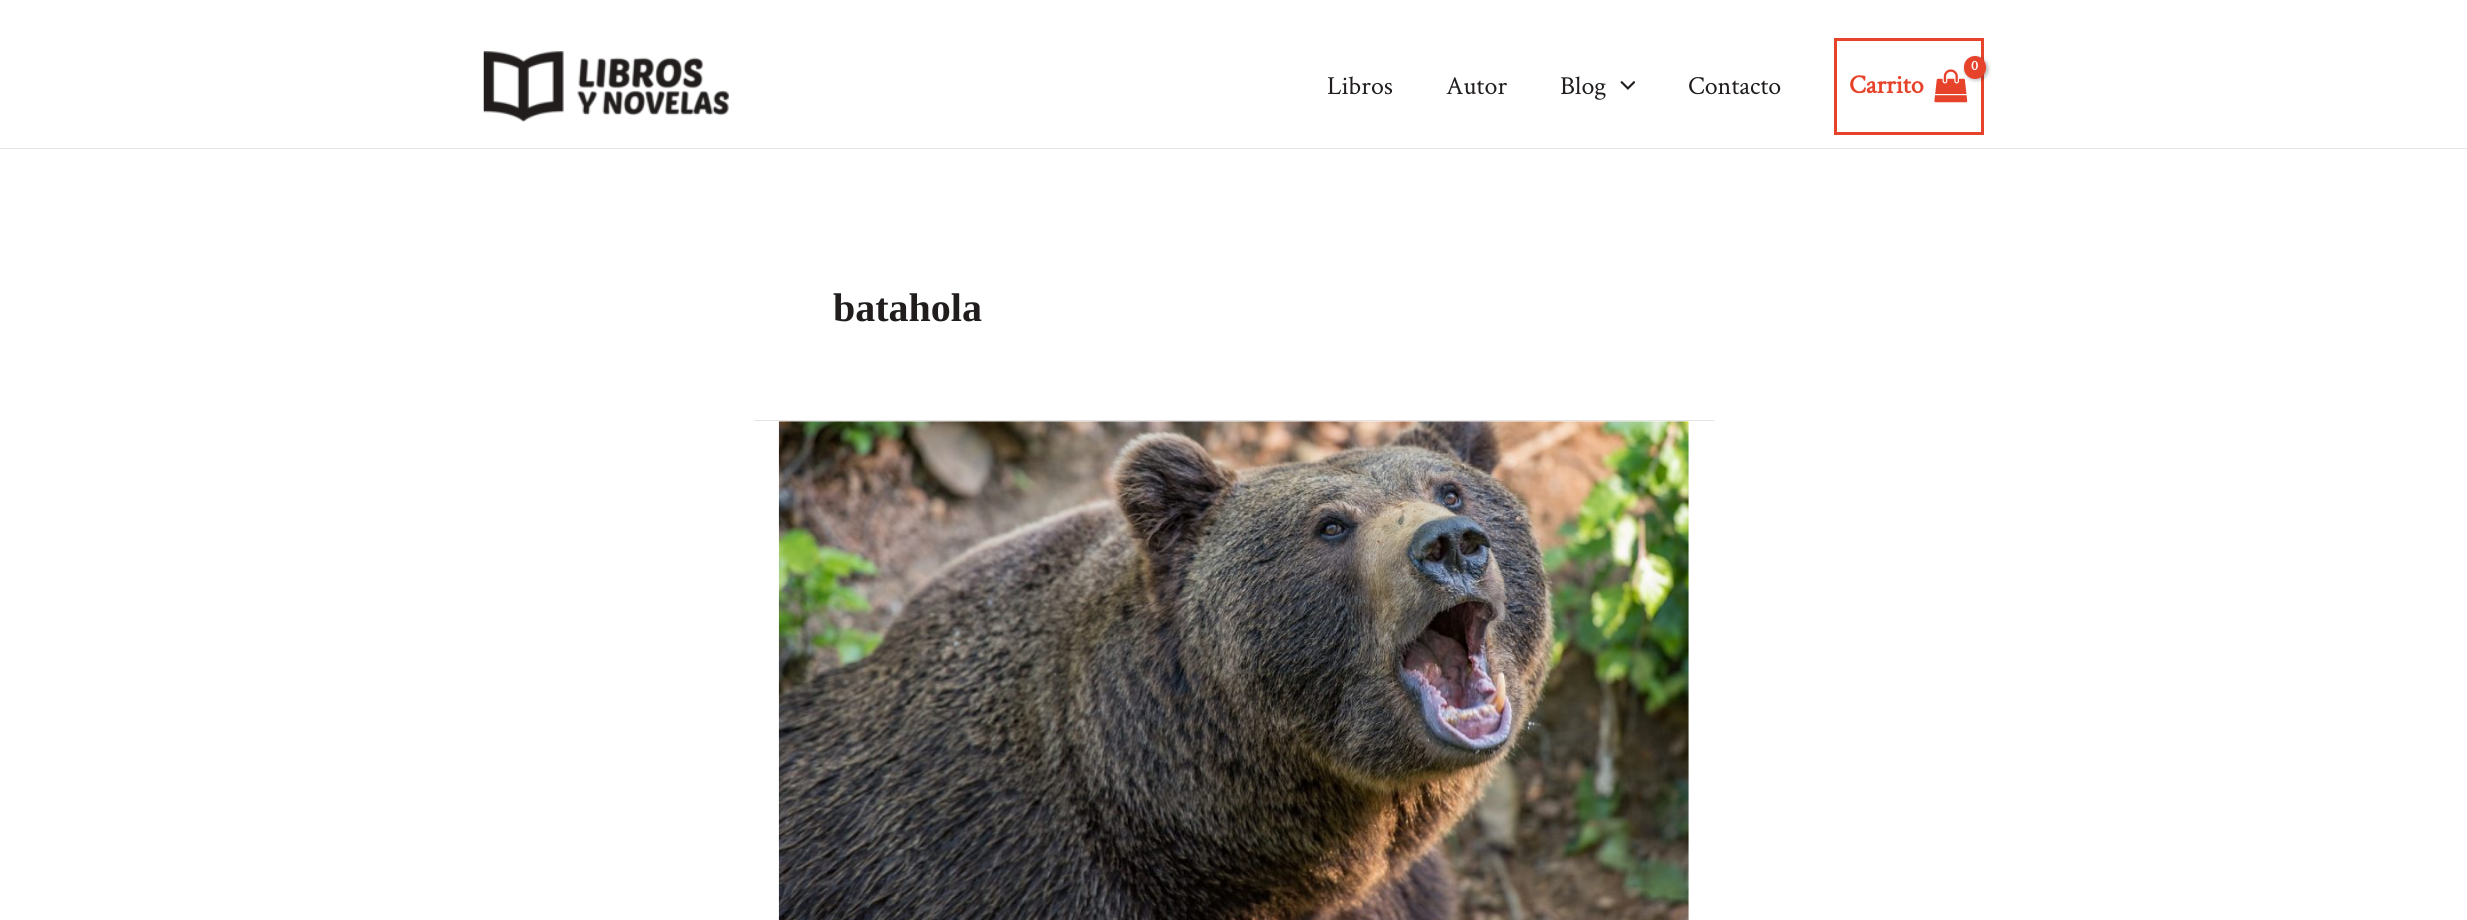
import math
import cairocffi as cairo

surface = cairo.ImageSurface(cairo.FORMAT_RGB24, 2467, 920)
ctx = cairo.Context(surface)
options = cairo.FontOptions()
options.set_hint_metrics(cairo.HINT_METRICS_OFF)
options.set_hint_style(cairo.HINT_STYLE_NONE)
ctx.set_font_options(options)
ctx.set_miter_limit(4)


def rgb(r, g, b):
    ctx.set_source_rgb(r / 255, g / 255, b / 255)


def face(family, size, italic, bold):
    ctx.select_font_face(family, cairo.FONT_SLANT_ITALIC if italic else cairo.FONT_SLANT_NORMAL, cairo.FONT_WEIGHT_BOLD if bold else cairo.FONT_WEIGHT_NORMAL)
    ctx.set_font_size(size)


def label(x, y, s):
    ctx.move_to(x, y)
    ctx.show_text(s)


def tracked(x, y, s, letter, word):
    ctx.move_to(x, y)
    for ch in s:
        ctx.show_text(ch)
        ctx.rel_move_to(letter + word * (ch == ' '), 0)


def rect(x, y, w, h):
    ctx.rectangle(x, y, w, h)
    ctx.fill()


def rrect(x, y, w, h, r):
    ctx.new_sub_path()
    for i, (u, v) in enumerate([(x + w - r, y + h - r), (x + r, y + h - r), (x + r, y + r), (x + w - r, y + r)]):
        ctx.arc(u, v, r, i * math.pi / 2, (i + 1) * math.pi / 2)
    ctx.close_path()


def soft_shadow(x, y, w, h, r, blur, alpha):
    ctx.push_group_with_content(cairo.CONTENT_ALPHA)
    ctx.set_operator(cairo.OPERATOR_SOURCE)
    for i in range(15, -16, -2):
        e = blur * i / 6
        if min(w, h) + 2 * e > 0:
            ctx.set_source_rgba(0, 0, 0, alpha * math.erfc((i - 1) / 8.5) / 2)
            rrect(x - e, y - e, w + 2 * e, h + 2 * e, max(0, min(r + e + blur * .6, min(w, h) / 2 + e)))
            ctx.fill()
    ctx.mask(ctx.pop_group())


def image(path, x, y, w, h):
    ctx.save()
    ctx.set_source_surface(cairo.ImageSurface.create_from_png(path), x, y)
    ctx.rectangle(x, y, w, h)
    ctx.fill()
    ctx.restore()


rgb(255, 255, 255)
ctx.paint()
rgb(229, 227, 227)
rect(0, 148, 2467, 1)
image('image0.png', 483, 51, 246, 71)
face('Crimson Text', 26, 0, 0)
rgb(32, 29, 28)
label(1327, 94, 'Libros')
label(1446, 94, 'Autor')
label(1560, 94, 'Blog')
image('image1.png', 1620, 80, 15, 10)
label(1688, 94, 'Contacto')
ctx.rectangle(1835.5, 39.5, 147, 94)
rgb(231, 67, 43)
ctx.set_line_width(3)
ctx.stroke()
image('image2.png', 1934, 69, 34, 34)
rgb(0, 0, 0)
soft_shadow(1965, 58, 23, 22, 11, 2, 0.3)
rgb(231, 67, 43)
rrect(1964, 56, 22, 23, 11)
ctx.fill()
face('Crimson Text', 14, 0, 1)
rgb(255, 255, 255)
tracked(1971, 70, '0', -1, 0)
face('Crimson Text', 26, 0, 1)
rgb(231, 67, 43)
label(1849, 93, 'Carrito')
rgb(229, 227, 227)
rect(754, 420, 960, 1)
face('Liberation Serif', 40, 0, 1)
rgb(32, 29, 28)
label(833, 321, 'batahola')
image('image3.png', 778, 421, 911, 499)
surface.write_to_png('render.png')
